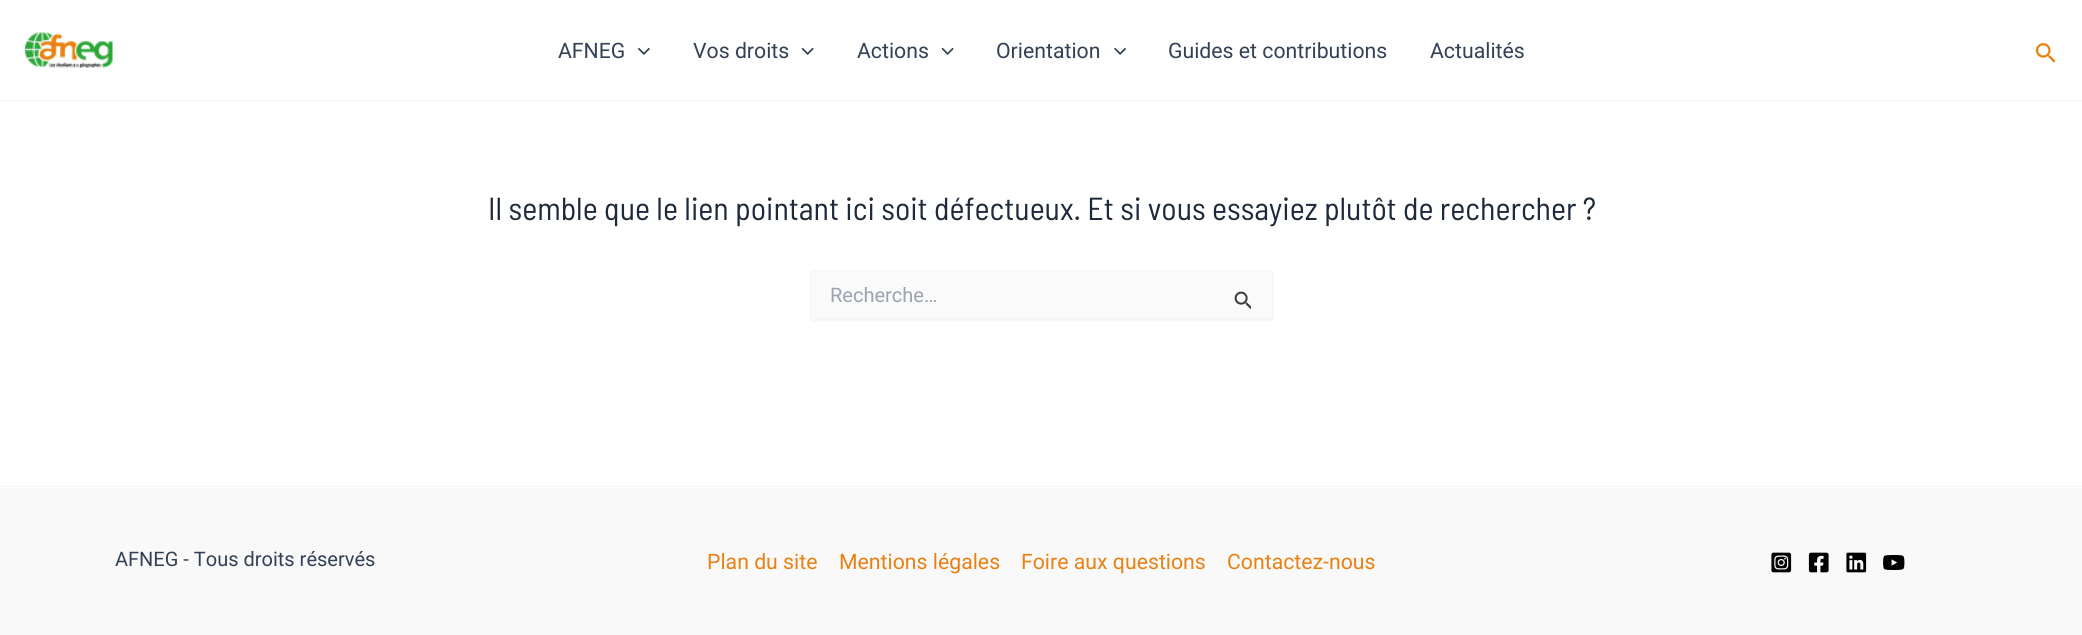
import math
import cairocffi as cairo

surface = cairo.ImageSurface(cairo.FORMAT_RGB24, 2082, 635)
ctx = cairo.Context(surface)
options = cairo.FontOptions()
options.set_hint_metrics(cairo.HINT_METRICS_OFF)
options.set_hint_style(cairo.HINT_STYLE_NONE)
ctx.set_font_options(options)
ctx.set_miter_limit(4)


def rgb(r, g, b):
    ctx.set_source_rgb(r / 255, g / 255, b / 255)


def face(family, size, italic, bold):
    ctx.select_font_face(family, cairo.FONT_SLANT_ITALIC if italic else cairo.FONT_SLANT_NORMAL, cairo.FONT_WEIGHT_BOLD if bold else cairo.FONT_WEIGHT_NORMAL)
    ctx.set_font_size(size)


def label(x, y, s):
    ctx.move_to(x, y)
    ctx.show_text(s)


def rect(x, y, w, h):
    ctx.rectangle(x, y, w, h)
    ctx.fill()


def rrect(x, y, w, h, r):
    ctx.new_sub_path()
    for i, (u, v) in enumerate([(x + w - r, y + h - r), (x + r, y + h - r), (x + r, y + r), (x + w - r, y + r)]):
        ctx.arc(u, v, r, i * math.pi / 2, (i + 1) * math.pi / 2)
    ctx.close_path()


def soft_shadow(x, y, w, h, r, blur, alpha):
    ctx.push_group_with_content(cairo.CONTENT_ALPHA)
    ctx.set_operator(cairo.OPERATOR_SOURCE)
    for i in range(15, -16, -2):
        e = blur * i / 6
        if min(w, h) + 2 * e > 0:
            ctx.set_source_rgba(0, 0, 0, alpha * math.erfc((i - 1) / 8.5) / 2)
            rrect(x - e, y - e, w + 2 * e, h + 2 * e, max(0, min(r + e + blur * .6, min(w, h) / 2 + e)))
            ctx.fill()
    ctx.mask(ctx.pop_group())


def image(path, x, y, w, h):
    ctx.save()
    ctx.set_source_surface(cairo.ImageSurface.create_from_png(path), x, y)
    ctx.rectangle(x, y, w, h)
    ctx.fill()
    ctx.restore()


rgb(255, 255, 255)
ctx.paint()
rgb(247, 245, 242)
rect(0, 100, 2082, 1)
image('image0.png', 25, 32, 88, 36)
face('Roboto', 21.25, 0, 0)
rgb(51, 65, 85)
label(558, 58, 'AFNEG')
image('image1.png', 638, 47, 12, 8)
label(693, 58, 'Vos droits')
image('image2.png', 801, 47, 13, 8)
label(857, 58, 'Actions')
image('image2.png', 941, 47, 13, 8)
label(996, 58, 'Orientation')
image('image3.png', 1114, 47, 12, 8)
label(1168, 58, 'Guides et contributions')
label(1430, 58, 'Actualités')
image('image4.png', 2036, 43, 19, 20)
face('Barlow Semi Condensed', 31.9, 0, 0)
rgb(30, 41, 59)
label(488, 220, 'Il semble que le lien pointant ici soit défectueux. Et si vous essayiez plutôt de rechercher ?')
rgb(0, 0, 0)
soft_shadow(810, 271, 463, 50, 2.5, 1, 0.05)
rgb(250, 250, 250)
rrect(810.5, 270.5, 462, 49, 2)
ctx.fill_preserve()
rgb(247, 245, 242)
ctx.set_line_width(1)
ctx.stroke()
face('Roboto', 20, 0, 0)
rgb(156, 163, 175)
label(830, 302, 'Recherche…')
image('image5.png', 1234, 291, 17, 18)
rgb(249, 249, 249)
rect(0, 488, 2082, 147)
rgb(247, 245, 242)
rect(0, 486, 2082, 1)
rgb(51, 65, 85)
label(115, 566, 'AFNEG - Tous droits réservés')
face('Roboto', 21.25, 0, 0)
rgb(234, 128, 17)
label(707, 569, 'Plan du site')
label(839, 569, 'Mentions légales')
label(1021, 569, 'Foire aux questions')
label(1227, 569, 'Contactez-nous')
image('image6.png', 1771, 552, 21, 21)
image('image7.png', 1808, 552, 21, 21)
image('image8.png', 1846, 552, 21, 21)
image('image9.png', 1883, 555, 22, 15)
surface.write_to_png('render.png')
